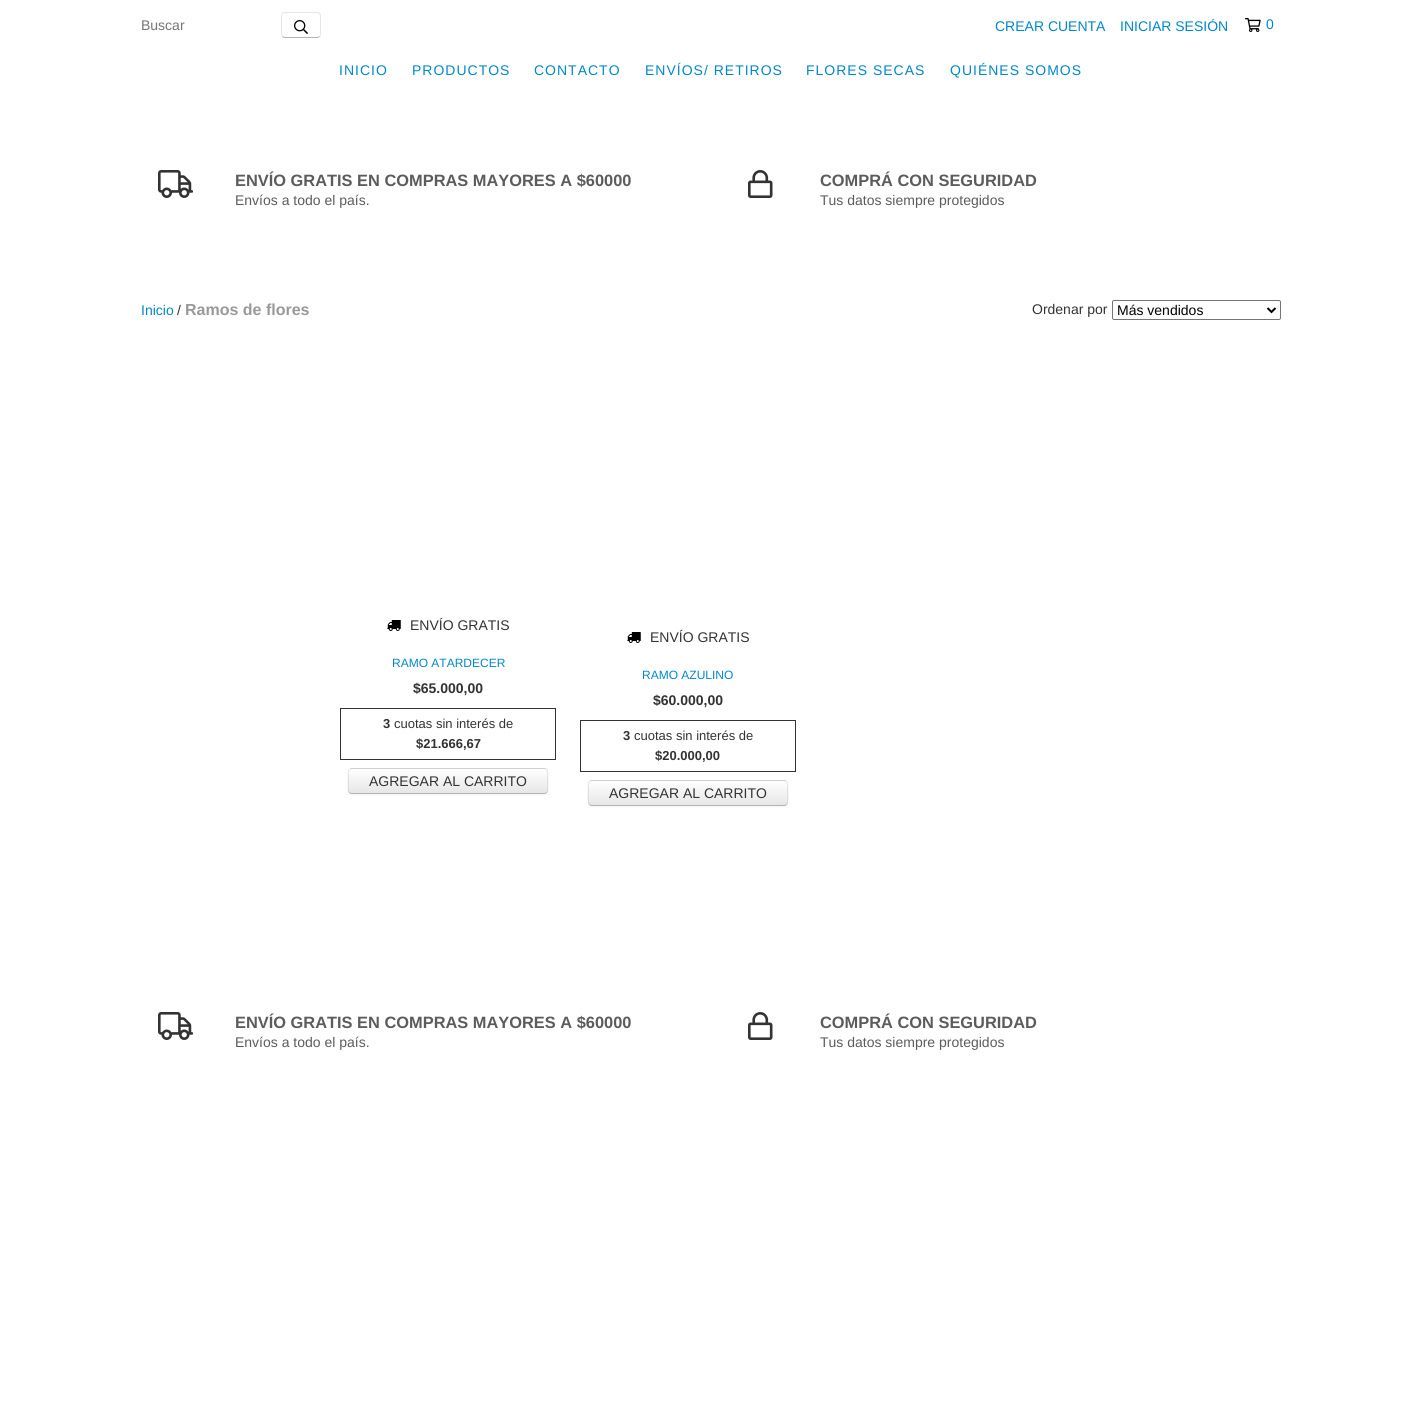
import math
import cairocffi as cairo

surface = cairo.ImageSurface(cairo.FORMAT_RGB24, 1421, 1408)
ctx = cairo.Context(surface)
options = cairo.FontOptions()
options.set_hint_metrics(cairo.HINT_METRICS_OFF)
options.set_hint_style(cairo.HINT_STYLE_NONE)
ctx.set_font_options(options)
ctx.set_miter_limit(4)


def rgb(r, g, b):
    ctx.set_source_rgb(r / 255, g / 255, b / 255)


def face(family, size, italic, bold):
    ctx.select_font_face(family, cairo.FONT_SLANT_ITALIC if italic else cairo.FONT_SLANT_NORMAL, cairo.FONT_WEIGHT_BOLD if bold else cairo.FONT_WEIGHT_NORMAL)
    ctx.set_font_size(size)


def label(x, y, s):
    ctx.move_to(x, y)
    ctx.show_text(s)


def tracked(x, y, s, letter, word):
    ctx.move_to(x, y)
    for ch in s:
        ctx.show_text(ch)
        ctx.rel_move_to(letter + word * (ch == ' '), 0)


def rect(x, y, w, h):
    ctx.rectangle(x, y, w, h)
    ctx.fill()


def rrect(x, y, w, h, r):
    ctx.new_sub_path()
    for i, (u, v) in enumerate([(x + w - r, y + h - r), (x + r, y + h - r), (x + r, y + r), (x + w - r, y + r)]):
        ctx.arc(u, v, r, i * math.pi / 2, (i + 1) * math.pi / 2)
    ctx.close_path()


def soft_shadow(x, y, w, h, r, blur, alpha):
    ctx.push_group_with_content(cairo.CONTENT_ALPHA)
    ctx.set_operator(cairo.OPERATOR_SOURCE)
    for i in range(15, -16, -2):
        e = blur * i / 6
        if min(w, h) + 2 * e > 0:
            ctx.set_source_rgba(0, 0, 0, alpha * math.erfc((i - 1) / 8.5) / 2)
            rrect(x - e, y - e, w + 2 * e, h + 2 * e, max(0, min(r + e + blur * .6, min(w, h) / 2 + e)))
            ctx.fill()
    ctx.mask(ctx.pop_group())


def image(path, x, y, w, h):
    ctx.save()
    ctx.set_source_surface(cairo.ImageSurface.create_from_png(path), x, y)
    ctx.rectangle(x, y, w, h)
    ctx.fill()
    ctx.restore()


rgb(255, 255, 255)
ctx.paint()
face('Liberation Sans', 14, 0, 0)
rgb(117, 117, 117)
label(141, 30, 'Buscar')
ctx.new_path()
ctx.move_to(319.5, 36.5)
ctx.curve_to(319, 37, 318, 37.5, 317, 37.5)
ctx.line_to(285, 37.5)
ctx.curve_to(284, 37.5, 283, 37, 282.5, 36.5)
rgb(179, 179, 179)
ctx.set_line_width(1)
ctx.stroke()
ctx.new_path()
ctx.move_to(282.5, 36.5)
ctx.curve_to(282, 36, 281.5, 35, 281.5, 34)
ctx.line_to(281.5, 16)
ctx.curve_to(281.5, 15, 282, 14, 282.5, 13.5)
ctx.curve_to(283, 13, 284, 12.5, 285, 12.5)
ctx.line_to(317, 12.5)
ctx.curve_to(318, 12.5, 319, 13, 319.5, 13.5)
ctx.curve_to(320, 14, 320.5, 15, 320.5, 16)
ctx.line_to(320.5, 34)
ctx.curve_to(320.5, 35, 320, 36, 319.5, 36.5)
ctx.set_source_rgba(0, 0, 0, 0.1)
ctx.stroke()
image('image0.png', 294, 20, 14, 14)
rgb(0, 136, 204)
label(995, 31, 'CREAR CUENTA')
label(1120, 31, 'INICIAR SESIÓN')
image('image1.png', 1245, 18, 16, 14)
tracked(1266, 29, '0', 1, 0)
tracked(339, 75, 'INICIO', 1, 0)
tracked(412, 75, 'PRODUCTOS', 1, 0)
tracked(534, 75, 'CONTACTO', 1, 0)
tracked(645, 75, 'ENVÍOS/ RETIROS', 1, 0)
tracked(806, 75, 'FLORES SECAS', 1, 0)
tracked(950, 75, 'QUIÉNES SOMOS', 1, 0)
image('image2.png', 158, 170, 35, 28)
face('Liberation Sans', 16.4, 0, 1)
rgb(92, 92, 92)
label(235, 186, 'ENVÍO GRATIS EN COMPRAS MAYORES A $60000')
face('Liberation Sans', 14, 0, 0)
label(235, 205, 'Envíos a todo el país.')
image('image3.png', 748, 170, 25, 28)
face('Liberation Sans', 16.4, 0, 1)
label(820, 186, 'COMPRÁ CON SEGURIDAD')
face('Liberation Sans', 14, 0, 0)
label(820, 205, 'Tus datos siempre protegidos')
rgb(0, 136, 204)
label(141, 315, 'Inicio')
rgb(51, 51, 51)
label(177, 315, '/')
face('Liberation Sans', 16, 0, 1)
rgb(153, 153, 153)
label(185, 315, 'Ramos de flores')
face('Liberation Sans', 14, 0, 0)
rgb(51, 51, 51)
label(1032, 314, 'Ordenar por')
rrect(1112.5, 300.5, 168, 19, 1.5)
rgb(118, 118, 118)
ctx.stroke()
ctx.new_path()
ctx.move_to(1267.5, 308)
ctx.line_to(1271.5, 312)
ctx.line_to(1275.5, 308)
rgb(0, 0, 0)
ctx.set_line_width(2)
ctx.stroke()
label(1117, 315, 'Más vendidos')
image('image4.png', 387, 620, 14, 11)
rgb(51, 51, 51)
label(410, 630, 'ENVÍO GRATIS')
face('Liberation Sans', 12, 0, 0)
rgb(0, 136, 204)
label(392, 667, 'RAMO ATARDECER')
face('Liberation Sans', 14, 0, 1)
rgb(51, 51, 51)
label(413, 693, '$65.000,00')
ctx.rectangle(340.5, 708.5, 215, 51)
ctx.set_line_width(1)
ctx.stroke()
face('Liberation Sans', 13, 0, 1)
label(383, 728, '3')
face('Liberation Sans', 13, 0, 0)
label(394, 728, 'cuotas sin interés de')
face('Liberation Sans', 13, 0, 1)
label(416, 748, '$21.666,67')
rgb(0, 0, 0)
soft_shadow(348, 769, 200, 26, 4, 1, 0.05)
ctx.save()
rrect(348, 768, 200, 26, 4)
ctx.clip()
gradient = cairo.LinearGradient(448, 769, 448, 793)
gradient.add_color_stop_rgba(0, 1, 1, 1, 1)
gradient.add_color_stop_rgba(1, 0.902, 0.902, 0.902, 1)
ctx.set_source(gradient)
rect(348, 769, 200, 24)
gradient = cairo.LinearGradient(448, 745, 448, 769)
gradient.add_color_stop_rgba(0, 1, 1, 1, 1)
gradient.add_color_stop_rgba(1, 0.902, 0.902, 0.902, 1)
ctx.set_source(gradient)
rect(348, 768, 200, 1)
ctx.restore()
ctx.new_path()
ctx.move_to(546.5, 792.5)
ctx.curve_to(546, 793, 545, 793.5, 544, 793.5)
ctx.line_to(352, 793.5)
ctx.curve_to(351, 793.5, 350, 793, 349.5, 792.5)
rgb(179, 179, 179)
ctx.stroke()
ctx.new_path()
ctx.move_to(349.5, 792.5)
ctx.curve_to(347, 790, 348.5, 781, 348.5, 778)
ctx.curve_to(348.5, 775.5, 347, 768.5, 352, 768.5)
ctx.line_to(544, 768.5)
ctx.curve_to(549, 768.5, 547.5, 775.5, 547.5, 778)
ctx.curve_to(547.5, 781, 549, 790, 546.5, 792.5)
ctx.set_source_rgba(0, 0, 0, 0.1)
ctx.stroke()
face('Liberation Sans', 14, 0, 0)
rgb(51, 51, 51)
label(369, 786, 'AGREGAR AL CARRITO')
image('image4.png', 627, 632, 14, 11)
label(650, 642, 'ENVÍO GRATIS')
face('Liberation Sans', 12, 0, 0)
rgb(0, 136, 204)
label(642, 679, 'RAMO AZULINO')
face('Liberation Sans', 14, 0, 1)
rgb(51, 51, 51)
label(653, 705, '$60.000,00')
ctx.rectangle(580.5, 720.5, 215, 51)
ctx.stroke()
face('Liberation Sans', 13, 0, 1)
label(623, 740, '3')
face('Liberation Sans', 13, 0, 0)
label(634, 740, 'cuotas sin interés de')
face('Liberation Sans', 13, 0, 1)
label(655, 760, '$20.000,00')
rgb(0, 0, 0)
soft_shadow(588, 781, 200, 26, 4, 1, 0.05)
ctx.save()
rrect(588, 780, 200, 26, 4)
ctx.clip()
gradient = cairo.LinearGradient(688, 781, 688, 805)
gradient.add_color_stop_rgba(0, 1, 1, 1, 1)
gradient.add_color_stop_rgba(1, 0.902, 0.902, 0.902, 1)
ctx.set_source(gradient)
rect(588, 781, 200, 24)
gradient = cairo.LinearGradient(688, 757, 688, 781)
gradient.add_color_stop_rgba(0, 1, 1, 1, 1)
gradient.add_color_stop_rgba(1, 0.902, 0.902, 0.902, 1)
ctx.set_source(gradient)
rect(588, 780, 200, 1)
ctx.restore()
ctx.new_path()
ctx.move_to(786.5, 804.5)
ctx.curve_to(786, 805, 785, 805.5, 784, 805.5)
ctx.line_to(592, 805.5)
ctx.curve_to(591, 805.5, 590, 805, 589.5, 804.5)
rgb(179, 179, 179)
ctx.stroke()
ctx.new_path()
ctx.move_to(589.5, 804.5)
ctx.curve_to(587, 802, 588.5, 793, 588.5, 790)
ctx.curve_to(588.5, 787.5, 587, 780.5, 592, 780.5)
ctx.line_to(784, 780.5)
ctx.curve_to(789, 780.5, 787.5, 787.5, 787.5, 790)
ctx.curve_to(787.5, 793, 789, 802, 786.5, 804.5)
ctx.set_source_rgba(0, 0, 0, 0.1)
ctx.stroke()
face('Liberation Sans', 14, 0, 0)
rgb(51, 51, 51)
label(609, 798, 'AGREGAR AL CARRITO')
image('image2.png', 158, 1012, 35, 28)
face('Liberation Sans', 16.4, 0, 1)
rgb(92, 92, 92)
label(235, 1028, 'ENVÍO GRATIS EN COMPRAS MAYORES A $60000')
face('Liberation Sans', 14, 0, 0)
label(235, 1047, 'Envíos a todo el país.')
image('image3.png', 748, 1012, 25, 28)
face('Liberation Sans', 16.4, 0, 1)
label(820, 1028, 'COMPRÁ CON SEGURIDAD')
face('Liberation Sans', 14, 0, 0)
label(820, 1047, 'Tus datos siempre protegidos')
surface.write_to_png('render.png')
